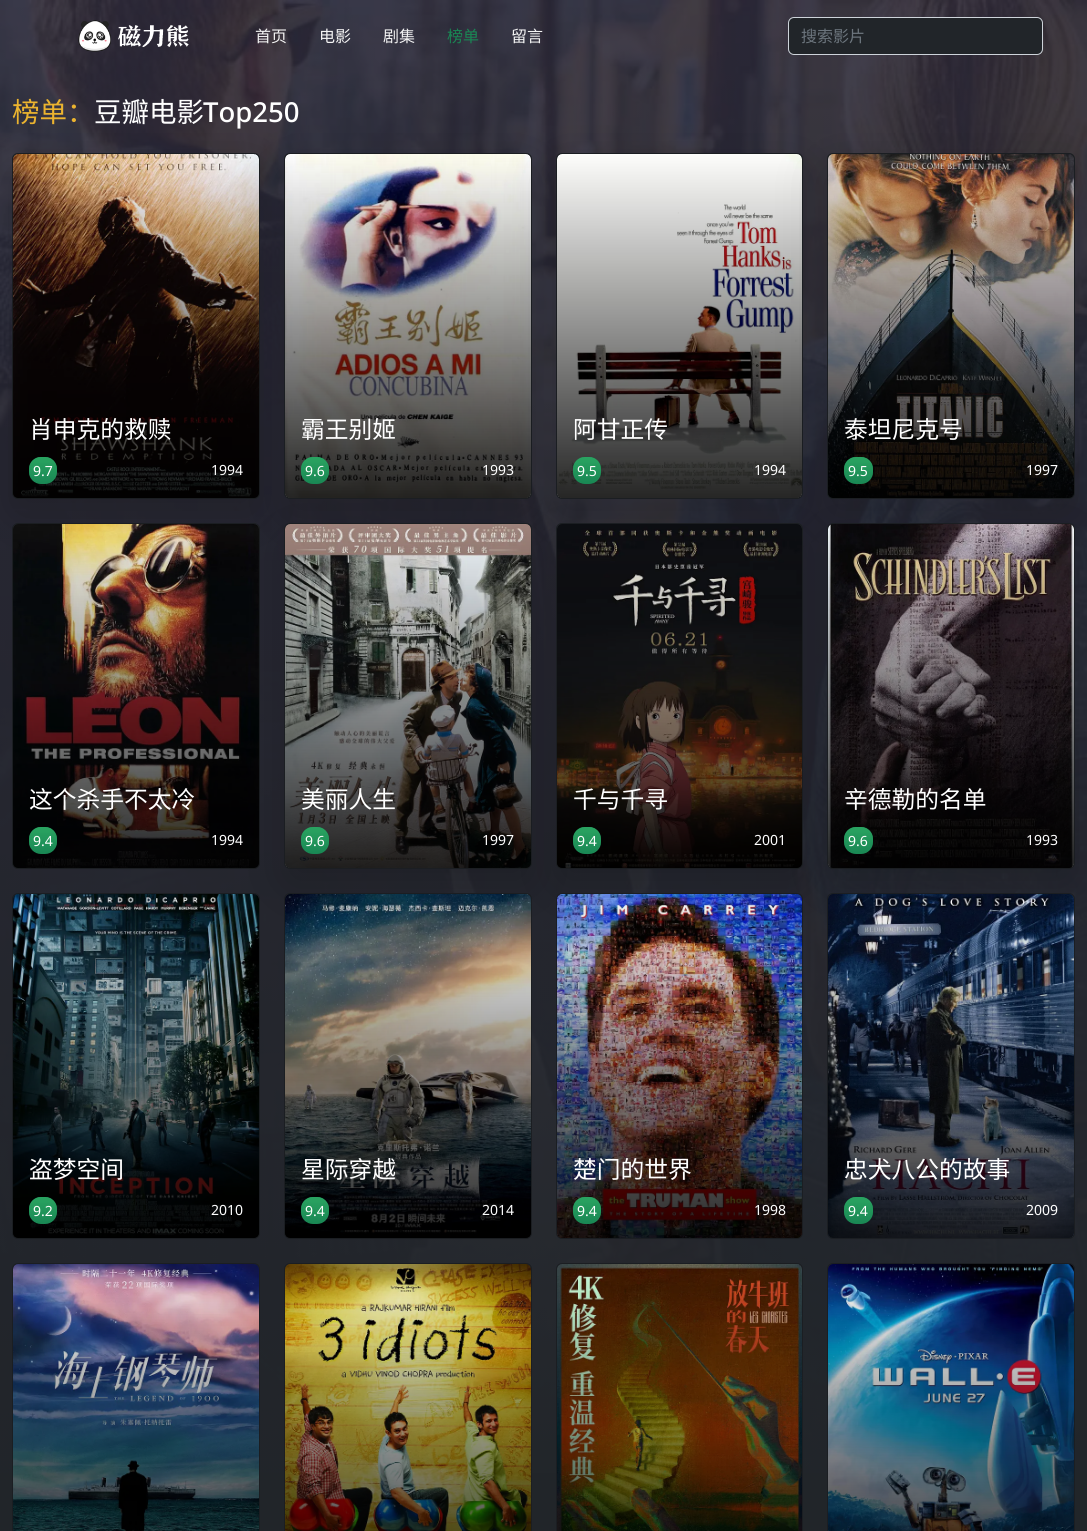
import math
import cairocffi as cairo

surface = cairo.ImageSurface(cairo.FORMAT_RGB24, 1087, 1531)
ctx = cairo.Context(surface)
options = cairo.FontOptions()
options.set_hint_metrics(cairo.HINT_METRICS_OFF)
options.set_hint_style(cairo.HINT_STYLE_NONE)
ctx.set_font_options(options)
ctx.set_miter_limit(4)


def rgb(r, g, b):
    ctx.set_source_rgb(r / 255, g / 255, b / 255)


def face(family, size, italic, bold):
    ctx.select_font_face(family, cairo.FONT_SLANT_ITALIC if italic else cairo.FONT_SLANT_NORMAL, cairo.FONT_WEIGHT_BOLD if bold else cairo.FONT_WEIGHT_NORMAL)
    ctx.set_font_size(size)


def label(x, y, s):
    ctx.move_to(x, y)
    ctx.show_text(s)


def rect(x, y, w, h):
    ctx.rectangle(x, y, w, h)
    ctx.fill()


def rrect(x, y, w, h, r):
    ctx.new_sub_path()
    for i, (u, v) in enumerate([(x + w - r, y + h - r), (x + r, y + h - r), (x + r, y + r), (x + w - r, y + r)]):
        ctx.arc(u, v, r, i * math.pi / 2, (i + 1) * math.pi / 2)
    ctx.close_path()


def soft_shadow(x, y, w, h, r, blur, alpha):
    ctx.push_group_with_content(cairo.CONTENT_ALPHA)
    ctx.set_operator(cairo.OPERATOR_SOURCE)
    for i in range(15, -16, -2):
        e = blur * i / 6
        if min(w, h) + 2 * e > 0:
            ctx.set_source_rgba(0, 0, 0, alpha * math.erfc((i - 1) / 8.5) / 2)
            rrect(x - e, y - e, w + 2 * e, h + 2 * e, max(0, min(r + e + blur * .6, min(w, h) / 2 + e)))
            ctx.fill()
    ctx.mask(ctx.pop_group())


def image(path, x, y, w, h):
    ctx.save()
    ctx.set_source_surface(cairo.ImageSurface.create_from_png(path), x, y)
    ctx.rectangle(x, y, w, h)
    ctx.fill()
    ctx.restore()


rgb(33, 37, 41)
ctx.paint()
image('image0.png', 0, 0, 1087, 1473)
image('image1.png', 78, 20, 111, 32)
face('Noto Sans CJK SC', 16, 0, 0)
rgb(244, 244, 244)
label(255, 42, '首页')
label(319, 42, '电影')
label(383, 42, '剧集')
rgb(25, 135, 84)
label(447, 42, '榜单')
rgb(244, 244, 244)
label(511, 42, '留言')
rgb(33, 37, 41)
rrect(788.5, 17.5, 254, 37, 5.5)
ctx.fill_preserve()
rgb(206, 212, 218)
ctx.set_line_width(1)
ctx.stroke()
rgb(108, 117, 125)
label(801, 42, '搜索影片')
face('Noto Sans CJK SC', 27.5, 0, 0)
rgb(236, 180, 47)
label(12, 122, '榜单：')
rgb(255, 255, 255)
label(94, 122, '豆瓣电影')
face('Noto Sans Medium', 27.5, 0, 0)
label(203, 122, 'Top250')
rgb(0, 0, 0)
soft_shadow(12, 169, 248, 346, 6, 24, 0.18)
rgb(33, 37, 41)
rrect(12, 153, 248, 346, 6)
ctx.fill()
rrect(12.5, 153.5, 247, 345, 5.5)
ctx.set_source_rgba(0, 0, 0, 0.18)
ctx.stroke()
image('image2.png', 13, 154, 246, 344)
gradient = cairo.LinearGradient(136, 154, 136, 498)
gradient.add_color_stop_rgba(0, 0, 0, 0, 0)
gradient.add_color_stop_rgba(1, 0, 0, 0, 0.85)
ctx.set_source(gradient)
rrect(13, 154, 246, 344, 5)
ctx.fill()
face('Noto Sans CJK SC', 23.75, 0, 0)
rgb(255, 255, 255)
label(29, 438, '肖申克的救赎')
rgb(25, 135, 84)
rrect(29, 457, 28, 27, 12)
ctx.fill()
gradient = cairo.LinearGradient(43, 484, 43, 457)
gradient.add_color_stop_rgba(0, 0.165, 0.643, 0.38, 0)
gradient.add_color_stop_rgba(1, 0.165, 0.643, 0.38, 1)
ctx.set_source(gradient)
rrect(29, 457, 28, 27, 12)
ctx.fill()
face('Noto Sans', 14, 0, 0)
rgb(255, 255, 255)
label(33, 476, '9.7')
label(211, 475, '1994')
rgb(0, 0, 0)
soft_shadow(284, 169, 248, 346, 6, 24, 0.18)
rgb(33, 37, 41)
rrect(284, 153, 248, 346, 6)
ctx.fill()
rrect(284.5, 153.5, 247, 345, 5.5)
ctx.set_source_rgba(0, 0, 0, 0.18)
ctx.stroke()
image('image3.png', 285, 154, 246, 344)
gradient = cairo.LinearGradient(408, 154, 408, 498)
gradient.add_color_stop_rgba(0, 0, 0, 0, 0)
gradient.add_color_stop_rgba(1, 0, 0, 0, 0.85)
ctx.set_source(gradient)
rrect(285, 154, 246, 344, 5)
ctx.fill()
face('Noto Sans CJK SC', 23.75, 0, 0)
rgb(255, 255, 255)
label(301, 438, '霸王别姬')
rgb(25, 135, 84)
rrect(301, 457, 28, 27, 12)
ctx.fill()
gradient = cairo.LinearGradient(315, 484, 315, 457)
gradient.add_color_stop_rgba(0, 0.165, 0.643, 0.38, 0)
gradient.add_color_stop_rgba(1, 0.165, 0.643, 0.38, 1)
ctx.set_source(gradient)
rrect(301, 457, 28, 27, 12)
ctx.fill()
face('Noto Sans', 14, 0, 0)
rgb(255, 255, 255)
label(305, 476, '9.6')
label(482, 475, '1993')
rgb(0, 0, 0)
soft_shadow(556, 169, 247, 346, 6, 24, 0.18)
rgb(33, 37, 41)
rrect(556, 153, 247, 346, 6)
ctx.fill()
rrect(556.5, 153.5, 246, 345, 5.5)
ctx.set_source_rgba(0, 0, 0, 0.18)
ctx.stroke()
image('image4.png', 557, 154, 245, 344)
gradient = cairo.LinearGradient(680, 154, 680, 498)
gradient.add_color_stop_rgba(0, 0, 0, 0, 0)
gradient.add_color_stop_rgba(1, 0, 0, 0, 0.85)
ctx.set_source(gradient)
rrect(557, 154, 245, 344, 5)
ctx.fill()
face('Noto Sans CJK SC', 23.75, 0, 0)
rgb(255, 255, 255)
label(573, 438, '阿甘正传')
rgb(25, 135, 84)
rrect(573, 457, 28, 27, 12)
ctx.fill()
gradient = cairo.LinearGradient(587, 484, 587, 457)
gradient.add_color_stop_rgba(0, 0.165, 0.643, 0.38, 0)
gradient.add_color_stop_rgba(1, 0.165, 0.643, 0.38, 1)
ctx.set_source(gradient)
rrect(573, 457, 28, 27, 12)
ctx.fill()
face('Noto Sans', 14, 0, 0)
rgb(255, 255, 255)
label(577, 476, '9.5')
label(754, 475, '1994')
rgb(0, 0, 0)
soft_shadow(827, 169, 248, 346, 6, 24, 0.18)
rgb(33, 37, 41)
rrect(827, 153, 248, 346, 6)
ctx.fill()
rrect(827.5, 153.5, 247, 345, 5.5)
ctx.set_source_rgba(0, 0, 0, 0.18)
ctx.stroke()
image('image5.png', 828, 154, 246, 344)
gradient = cairo.LinearGradient(951, 154, 951, 498)
gradient.add_color_stop_rgba(0, 0, 0, 0, 0)
gradient.add_color_stop_rgba(1, 0, 0, 0, 0.85)
ctx.set_source(gradient)
rrect(828, 154, 246, 344, 5)
ctx.fill()
face('Noto Sans CJK SC', 23.75, 0, 0)
rgb(255, 255, 255)
label(844, 438, '泰坦尼克号')
rgb(25, 135, 84)
rrect(844, 457, 29, 27, 12)
ctx.fill()
gradient = cairo.LinearGradient(859, 484, 859, 457)
gradient.add_color_stop_rgba(0, 0.165, 0.643, 0.38, 0)
gradient.add_color_stop_rgba(1, 0.165, 0.643, 0.38, 1)
ctx.set_source(gradient)
rrect(844, 457, 29, 27, 12)
ctx.fill()
face('Noto Sans', 14, 0, 0)
rgb(255, 255, 255)
label(848, 476, '9.5')
label(1026, 475, '1997')
rgb(33, 37, 41)
rrect(12.5, 523.5, 247, 345, 5.5)
ctx.fill_preserve()
rgb(27, 30, 34)
ctx.stroke()
image('image6.png', 13, 524, 246, 344)
gradient = cairo.LinearGradient(136, 524, 136, 868)
gradient.add_color_stop_rgba(0, 0, 0, 0, 0)
gradient.add_color_stop_rgba(1, 0, 0, 0, 0.85)
ctx.set_source(gradient)
rrect(13, 524, 246, 344, 5)
ctx.fill()
face('Noto Sans CJK SC', 23.75, 0, 0)
rgb(255, 255, 255)
label(29, 808, '这个杀手不太冷')
rgb(25, 135, 84)
rrect(29, 827, 28, 27, 12)
ctx.fill()
gradient = cairo.LinearGradient(43, 854, 43, 827)
gradient.add_color_stop_rgba(0, 0.165, 0.643, 0.38, 0)
gradient.add_color_stop_rgba(1, 0.165, 0.643, 0.38, 1)
ctx.set_source(gradient)
rrect(29, 827, 28, 27, 12)
ctx.fill()
face('Noto Sans', 14, 0, 0)
rgb(255, 255, 255)
label(33, 846, '9.4')
label(211, 845, '1994')
rgb(0, 0, 0)
soft_shadow(284, 539, 248, 346, 6, 24, 0.18)
rgb(33, 37, 41)
rrect(284.5, 523.5, 247, 345, 5.5)
ctx.fill_preserve()
rgb(27, 30, 34)
ctx.stroke()
image('image7.png', 285, 524, 246, 344)
gradient = cairo.LinearGradient(408, 524, 408, 868)
gradient.add_color_stop_rgba(0, 0, 0, 0, 0)
gradient.add_color_stop_rgba(1, 0, 0, 0, 0.85)
ctx.set_source(gradient)
rrect(285, 524, 246, 344, 5)
ctx.fill()
face('Noto Sans CJK SC', 23.75, 0, 0)
rgb(255, 255, 255)
label(301, 808, '美丽人生')
rgb(25, 135, 84)
rrect(301, 827, 28, 27, 12)
ctx.fill()
gradient = cairo.LinearGradient(315, 854, 315, 827)
gradient.add_color_stop_rgba(0, 0.165, 0.643, 0.38, 0)
gradient.add_color_stop_rgba(1, 0.165, 0.643, 0.38, 1)
ctx.set_source(gradient)
rrect(301, 827, 28, 27, 12)
ctx.fill()
face('Noto Sans', 14, 0, 0)
rgb(255, 255, 255)
label(305, 846, '9.6')
label(482, 845, '1997')
rgb(0, 0, 0)
soft_shadow(556, 539, 247, 346, 6, 24, 0.18)
rgb(33, 37, 41)
rrect(556, 523, 247, 346, 6)
ctx.fill()
rrect(556.5, 523.5, 246, 345, 5.5)
ctx.set_source_rgba(0, 0, 0, 0.18)
ctx.stroke()
image('image8.png', 557, 524, 245, 344)
gradient = cairo.LinearGradient(680, 524, 680, 868)
gradient.add_color_stop_rgba(0, 0, 0, 0, 0)
gradient.add_color_stop_rgba(1, 0, 0, 0, 0.85)
ctx.set_source(gradient)
rrect(557, 524, 245, 344, 5)
ctx.fill()
face('Noto Sans CJK SC', 23.75, 0, 0)
rgb(255, 255, 255)
label(573, 808, '千与千寻')
rgb(25, 135, 84)
rrect(573, 827, 28, 27, 12)
ctx.fill()
gradient = cairo.LinearGradient(587, 854, 587, 827)
gradient.add_color_stop_rgba(0, 0.165, 0.643, 0.38, 0)
gradient.add_color_stop_rgba(1, 0.165, 0.643, 0.38, 1)
ctx.set_source(gradient)
rrect(573, 827, 28, 27, 12)
ctx.fill()
face('Noto Sans', 14, 0, 0)
rgb(255, 255, 255)
label(577, 846, '9.4')
label(754, 845, '2001')
rgb(0, 0, 0)
soft_shadow(827, 539, 248, 346, 6, 24, 0.18)
rgb(33, 37, 41)
rrect(827.5, 523.5, 247, 345, 5.5)
ctx.fill_preserve()
rgb(27, 30, 34)
ctx.stroke()
image('image9.png', 828, 524, 246, 344)
gradient = cairo.LinearGradient(951, 524, 951, 868)
gradient.add_color_stop_rgba(0, 0, 0, 0, 0)
gradient.add_color_stop_rgba(1, 0, 0, 0, 0.85)
ctx.set_source(gradient)
rrect(828, 524, 246, 344, 5)
ctx.fill()
face('Noto Sans CJK SC', 23.75, 0, 0)
rgb(255, 255, 255)
label(844, 808, '辛德勒的名单')
rgb(25, 135, 84)
rrect(844, 827, 29, 27, 12)
ctx.fill()
gradient = cairo.LinearGradient(859, 854, 859, 827)
gradient.add_color_stop_rgba(0, 0.165, 0.643, 0.38, 0)
gradient.add_color_stop_rgba(1, 0.165, 0.643, 0.38, 1)
ctx.set_source(gradient)
rrect(844, 827, 29, 27, 12)
ctx.fill()
face('Noto Sans', 14, 0, 0)
rgb(255, 255, 255)
label(848, 846, '9.6')
label(1026, 845, '1993')
rgb(33, 37, 41)
rrect(12.5, 893.5, 247, 345, 5.5)
ctx.fill_preserve()
rgb(27, 30, 34)
ctx.stroke()
image('image10.png', 13, 894, 246, 344)
gradient = cairo.LinearGradient(136, 894, 136, 1238)
gradient.add_color_stop_rgba(0, 0, 0, 0, 0)
gradient.add_color_stop_rgba(1, 0, 0, 0, 0.85)
ctx.set_source(gradient)
rrect(13, 894, 246, 344, 5)
ctx.fill()
face('Noto Sans CJK SC', 23.75, 0, 0)
rgb(255, 255, 255)
label(29, 1178, '盗梦空间')
rgb(25, 135, 84)
rrect(29, 1197, 28, 27, 12)
ctx.fill()
gradient = cairo.LinearGradient(43, 1224, 43, 1197)
gradient.add_color_stop_rgba(0, 0.165, 0.643, 0.38, 0)
gradient.add_color_stop_rgba(1, 0.165, 0.643, 0.38, 1)
ctx.set_source(gradient)
rrect(29, 1197, 28, 27, 12)
ctx.fill()
face('Noto Sans', 14, 0, 0)
rgb(255, 255, 255)
label(33, 1216, '9.2')
label(211, 1215, '2010')
rgb(33, 37, 41)
rrect(284.5, 893.5, 247, 345, 5.5)
ctx.fill_preserve()
rgb(27, 30, 34)
ctx.stroke()
image('image11.png', 285, 894, 246, 344)
gradient = cairo.LinearGradient(408, 894, 408, 1238)
gradient.add_color_stop_rgba(0, 0, 0, 0, 0)
gradient.add_color_stop_rgba(1, 0, 0, 0, 0.85)
ctx.set_source(gradient)
rrect(285, 894, 246, 344, 5)
ctx.fill()
face('Noto Sans CJK SC', 23.75, 0, 0)
rgb(255, 255, 255)
label(301, 1178, '星际穿越')
rgb(25, 135, 84)
rrect(301, 1197, 28, 27, 12)
ctx.fill()
gradient = cairo.LinearGradient(315, 1224, 315, 1197)
gradient.add_color_stop_rgba(0, 0.165, 0.643, 0.38, 0)
gradient.add_color_stop_rgba(1, 0.165, 0.643, 0.38, 1)
ctx.set_source(gradient)
rrect(301, 1197, 28, 27, 12)
ctx.fill()
face('Noto Sans', 14, 0, 0)
rgb(255, 255, 255)
label(305, 1216, '9.4')
label(482, 1215, '2014')
rgb(33, 37, 41)
rrect(556.5, 893.5, 246, 345, 5.5)
ctx.fill_preserve()
rgb(27, 30, 34)
ctx.stroke()
image('image12.png', 557, 894, 245, 344)
gradient = cairo.LinearGradient(680, 894, 680, 1238)
gradient.add_color_stop_rgba(0, 0, 0, 0, 0)
gradient.add_color_stop_rgba(1, 0, 0, 0, 0.85)
ctx.set_source(gradient)
rrect(557, 894, 245, 344, 5)
ctx.fill()
face('Noto Sans CJK SC', 23.75, 0, 0)
rgb(255, 255, 255)
label(573, 1178, '楚门的世界')
rgb(25, 135, 84)
rrect(573, 1197, 28, 27, 12)
ctx.fill()
gradient = cairo.LinearGradient(587, 1224, 587, 1197)
gradient.add_color_stop_rgba(0, 0.165, 0.643, 0.38, 0)
gradient.add_color_stop_rgba(1, 0.165, 0.643, 0.38, 1)
ctx.set_source(gradient)
rrect(573, 1197, 28, 27, 12)
ctx.fill()
face('Noto Sans', 14, 0, 0)
rgb(255, 255, 255)
label(577, 1216, '9.4')
label(754, 1215, '1998')
rgb(33, 37, 41)
rrect(827.5, 893.5, 247, 345, 5.5)
ctx.fill_preserve()
rgb(27, 30, 34)
ctx.stroke()
image('image13.png', 828, 894, 246, 344)
gradient = cairo.LinearGradient(951, 894, 951, 1238)
gradient.add_color_stop_rgba(0, 0, 0, 0, 0)
gradient.add_color_stop_rgba(1, 0, 0, 0, 0.85)
ctx.set_source(gradient)
rrect(828, 894, 246, 344, 5)
ctx.fill()
face('Noto Sans CJK SC', 23.75, 0, 0)
rgb(255, 255, 255)
label(844, 1178, '忠犬八公的故事')
rgb(25, 135, 84)
rrect(844, 1197, 29, 27, 12)
ctx.fill()
gradient = cairo.LinearGradient(859, 1224, 859, 1197)
gradient.add_color_stop_rgba(0, 0.165, 0.643, 0.38, 0)
gradient.add_color_stop_rgba(1, 0.165, 0.643, 0.38, 1)
ctx.set_source(gradient)
rrect(844, 1197, 29, 27, 12)
ctx.fill()
face('Noto Sans', 14, 0, 0)
rgb(255, 255, 255)
label(848, 1216, '9.4')
label(1026, 1215, '2009')
rgb(33, 37, 41)
rrect(12.5, 1263.5, 247, 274, 5.5)
ctx.fill_preserve()
rgb(27, 30, 34)
ctx.stroke()
image('image14.png', 13, 1264, 246, 267)
gradient = cairo.LinearGradient(136, 1264, 136, 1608)
gradient.add_color_stop_rgba(0, 0, 0, 0, 0)
gradient.add_color_stop_rgba(1, 0, 0, 0, 0.85)
ctx.set_source(gradient)
rect(13, 1273, 246, 258)
rgb(33, 37, 41)
rrect(284.5, 1263.5, 247, 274, 5.5)
ctx.fill_preserve()
rgb(27, 30, 34)
ctx.stroke()
image('image15.png', 285, 1264, 246, 267)
gradient = cairo.LinearGradient(408, 1264, 408, 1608)
gradient.add_color_stop_rgba(0, 0, 0, 0, 0)
gradient.add_color_stop_rgba(1, 0, 0, 0, 0.85)
ctx.set_source(gradient)
rect(285, 1273, 246, 258)
rgb(33, 37, 41)
rrect(556.5, 1263.5, 246, 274, 5.5)
ctx.fill_preserve()
rgb(27, 30, 34)
ctx.stroke()
image('image16.png', 557, 1264, 245, 267)
gradient = cairo.LinearGradient(680, 1264, 680, 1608)
gradient.add_color_stop_rgba(0, 0, 0, 0, 0)
gradient.add_color_stop_rgba(1, 0, 0, 0, 0.85)
ctx.set_source(gradient)
rect(557, 1275, 245, 256)
rgb(33, 37, 41)
rrect(827.5, 1263.5, 247, 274, 5.5)
ctx.fill_preserve()
rgb(27, 30, 34)
ctx.stroke()
image('image17.png', 828, 1264, 246, 267)
gradient = cairo.LinearGradient(951, 1264, 951, 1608)
gradient.add_color_stop_rgba(0, 0, 0, 0, 0)
gradient.add_color_stop_rgba(1, 0, 0, 0, 0.85)
ctx.set_source(gradient)
rect(828, 1273, 246, 258)
surface.write_to_png('render.png')
